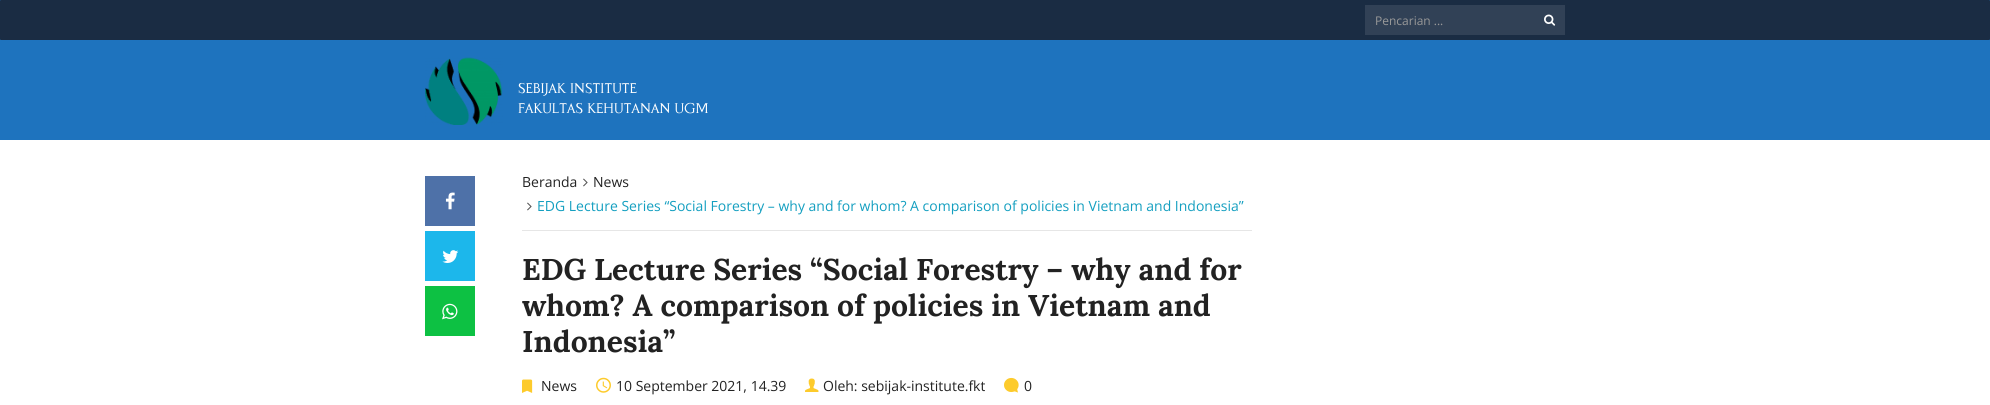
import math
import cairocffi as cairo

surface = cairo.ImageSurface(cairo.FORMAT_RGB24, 1990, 405)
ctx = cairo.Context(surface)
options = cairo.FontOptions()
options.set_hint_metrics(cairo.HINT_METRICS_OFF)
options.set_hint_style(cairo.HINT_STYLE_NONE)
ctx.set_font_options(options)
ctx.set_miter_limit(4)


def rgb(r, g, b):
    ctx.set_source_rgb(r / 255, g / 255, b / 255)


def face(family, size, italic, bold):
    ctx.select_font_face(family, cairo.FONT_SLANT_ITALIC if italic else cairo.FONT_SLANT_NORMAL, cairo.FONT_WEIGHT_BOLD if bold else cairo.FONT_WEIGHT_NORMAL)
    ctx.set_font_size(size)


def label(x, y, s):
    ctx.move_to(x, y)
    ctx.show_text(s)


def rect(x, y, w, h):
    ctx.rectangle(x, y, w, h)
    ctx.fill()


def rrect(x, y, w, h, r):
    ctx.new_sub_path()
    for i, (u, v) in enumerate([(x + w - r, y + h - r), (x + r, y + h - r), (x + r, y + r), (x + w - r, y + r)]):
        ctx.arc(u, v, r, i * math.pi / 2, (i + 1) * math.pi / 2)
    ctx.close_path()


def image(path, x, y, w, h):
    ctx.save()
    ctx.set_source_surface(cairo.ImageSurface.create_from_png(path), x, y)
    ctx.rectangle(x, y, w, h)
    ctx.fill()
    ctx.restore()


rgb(255, 255, 255)
ctx.paint()
rgb(30, 115, 190)
rect(0, 0, 1990, 140)
rgb(26, 44, 67)
rrect(0, 0, 1990, 40, 1)
ctx.fill()
rgb(49, 65, 86)
rect(1365, 5, 200, 30)
face('Open Sans', 12, 0, 0)
rgb(153, 153, 153)
label(1375, 25, 'Pencarian ...')
image('image0.png', 1544, 14, 12, 12)
image('image1.png', 425, 57, 78, 68)
face('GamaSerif', 14, 0, 0)
rgb(255, 255, 255)
label(518, 93, 'SEBIJAK INSTITUTE')
label(518, 113, 'FAKULTAS KEHUTANAN UGM')
rgb(78, 113, 168)
rect(425, 176, 50, 50)
image('image2.png', 445, 192, 10, 18)
rgb(28, 183, 235)
rect(425, 231, 50, 50)
image('image3.png', 442, 250, 17, 13)
rgb(13, 193, 67)
rect(425, 286, 50, 50)
image('image4.png', 442, 303, 16, 17)
rgb(230, 230, 230)
rect(522, 230, 730, 1)
face('Open Sans', 14, 0, 0)
rgb(34, 34, 34)
label(522, 187, 'Beranda')
image('image5.png', 583, 178, 5, 9)
label(593, 187, 'News')
image('image5.png', 527, 202, 5, 9)
rgb(20, 159, 192)
label(537, 211, 'EDG Lecture Series “Social Forestry – why and for whom? A comparison of policies in Vietnam and Indonesia”')
face('Lora', 30, 0, 1)
rgb(34, 34, 34)
label(522, 280, 'EDG Lecture Series “Social Forestry – why and for')
label(522, 316, 'whom? A comparison of policies in Vietnam and')
label(522, 352, 'Indonesia”')
image('image6.png', 522, 379, 11, 14)
face('Open Sans', 14, 0, 0)
label(541, 391, 'News')
image('image7.png', 596, 377, 15, 16)
label(616, 391, '10 September 2021, 14.39')
image('image8.png', 805, 378, 14, 14)
label(823, 391, 'Oleh: sebijak-institute.fkt')
image('image9.png', 1004, 377, 15, 16)
label(1024, 391, '0')
surface.write_to_png('render.png')
